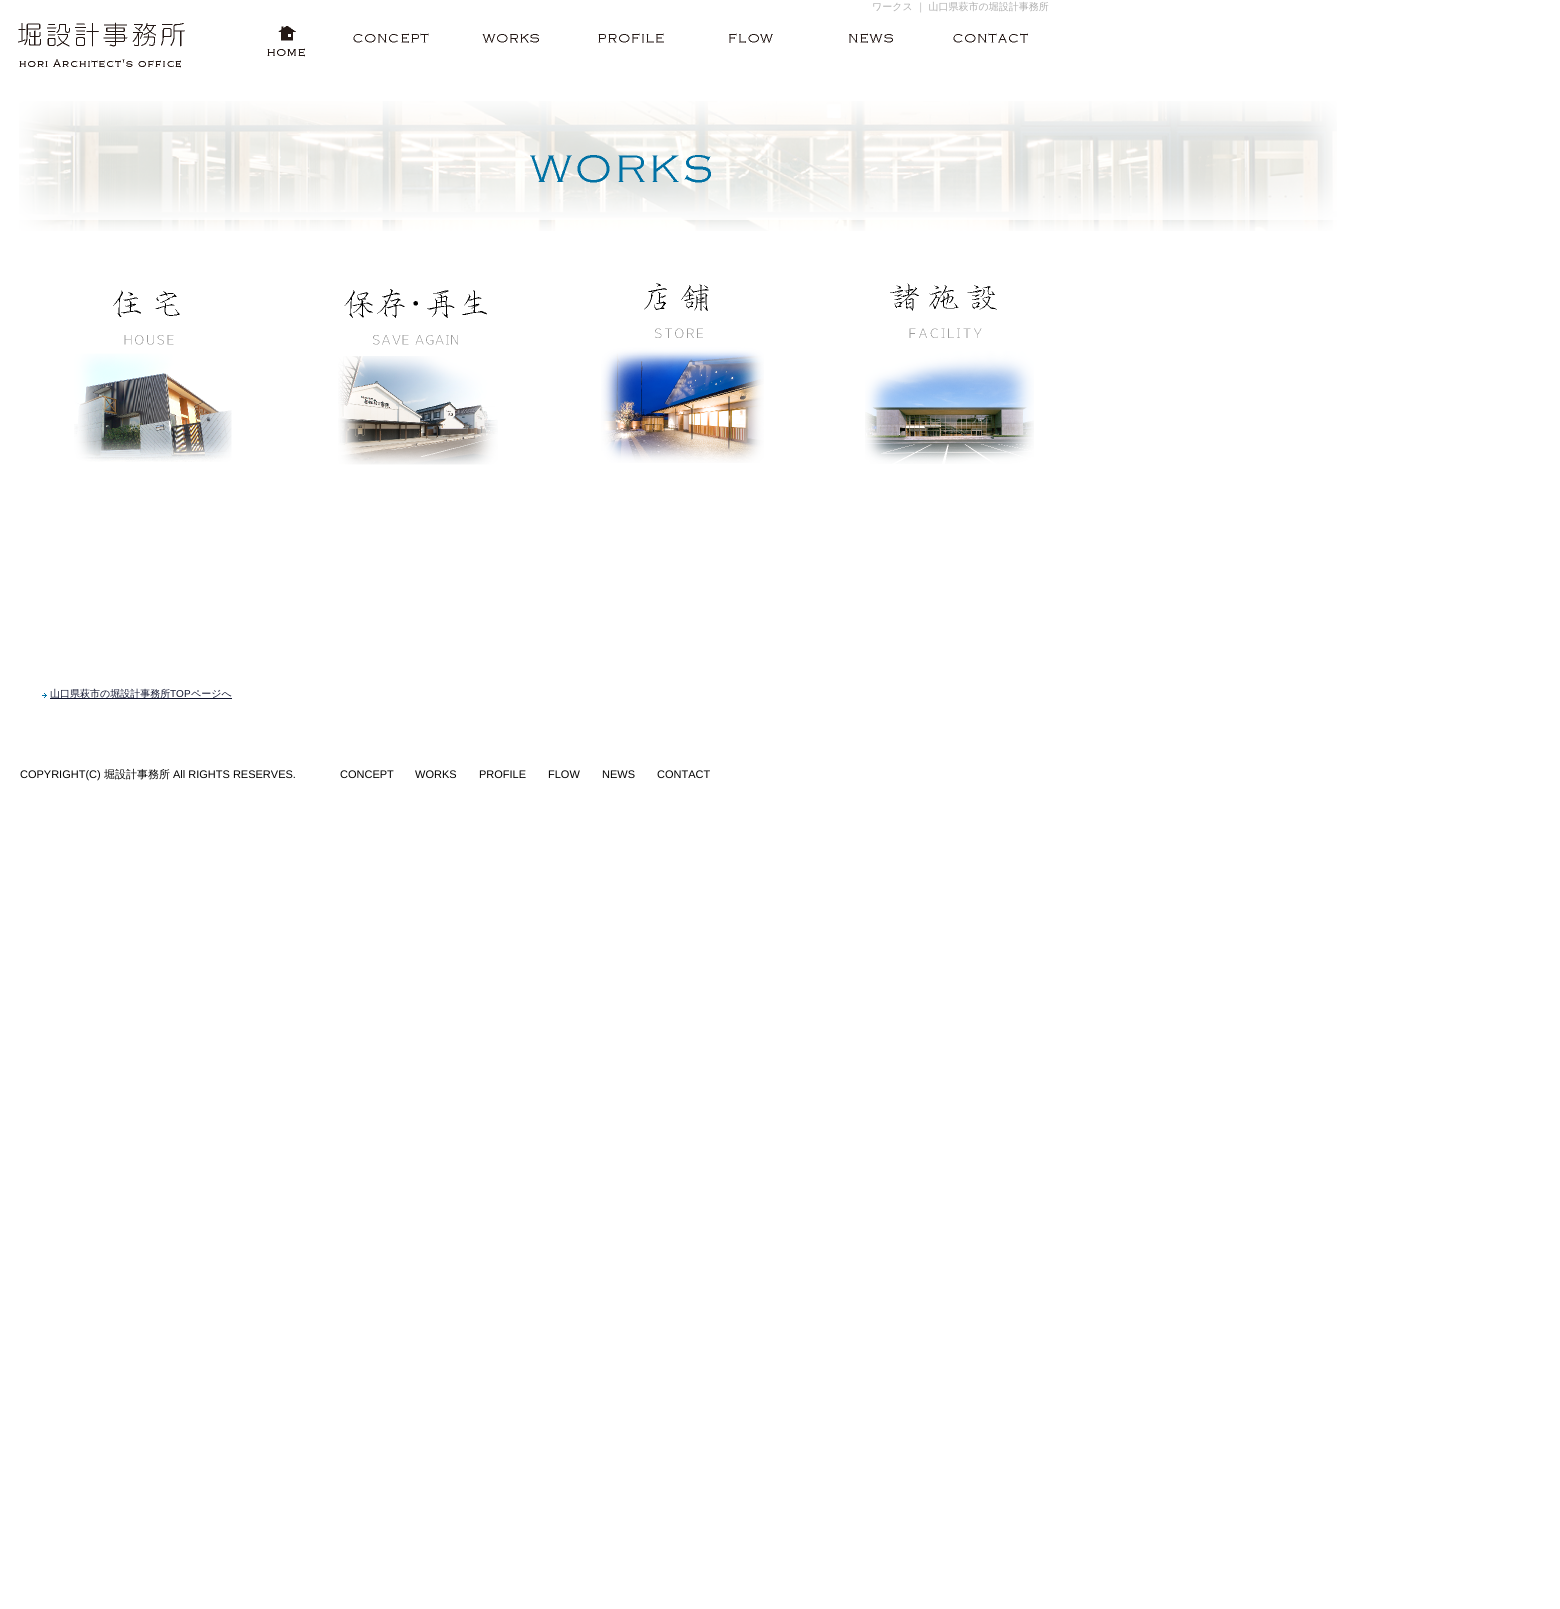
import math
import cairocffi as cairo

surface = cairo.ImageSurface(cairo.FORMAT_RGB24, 1560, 1609)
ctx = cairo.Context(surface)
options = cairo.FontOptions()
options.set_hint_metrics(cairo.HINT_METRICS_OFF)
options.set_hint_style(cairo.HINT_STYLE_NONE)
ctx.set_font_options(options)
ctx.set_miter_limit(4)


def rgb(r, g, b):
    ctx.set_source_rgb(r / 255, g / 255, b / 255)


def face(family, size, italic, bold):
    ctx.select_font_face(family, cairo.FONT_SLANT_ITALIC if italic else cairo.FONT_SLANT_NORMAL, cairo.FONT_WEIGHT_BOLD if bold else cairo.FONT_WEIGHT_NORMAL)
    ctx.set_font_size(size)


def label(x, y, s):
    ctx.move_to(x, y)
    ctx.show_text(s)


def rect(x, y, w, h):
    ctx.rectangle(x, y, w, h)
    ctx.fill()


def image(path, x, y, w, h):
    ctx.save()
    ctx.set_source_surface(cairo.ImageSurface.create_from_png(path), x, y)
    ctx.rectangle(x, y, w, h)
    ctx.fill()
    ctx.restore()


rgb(255, 255, 255)
ctx.paint()
face('WenQuanYi Zen Hei Medium', 10, 0, 0)
rgb(174, 174, 174)
label(872, 10, 'ワークス ｜ 山口県萩市の堀設計事務所')
image('image0.png', 18, 22, 287, 46)
image('image1.png', 353, 33, 76, 10)
image('image2.png', 482, 34, 57, 9)
image('image3.png', 598, 33, 66, 10)
image('image4.png', 729, 33, 44, 10)
image('image5.png', 849, 33, 44, 10)
image('image6.png', 953, 33, 75, 10)
image('image7.png', 19, 101, 1318, 130)
image('image8.png', 74, 290, 158, 172)
image('image9.png', 338, 289, 160, 176)
image('image10.png', 601, 283, 163, 180)
image('image11.png', 865, 283, 169, 181)
image('image12.png', 42, 693, 5, 5)
rgb(15, 20, 46)
rect(50, 698, 182, 1)
label(50, 697, '山口県萩市の堀設計事務所')
face('Liberation Sans', 10, 0, 0)
label(170, 697, 'TOP')
face('WenQuanYi Zen Hei Medium', 10, 0, 0)
label(191, 697, 'ページへ')
face('Liberation Sans', 11, 0, 0)
rgb(0, 0, 0)
label(20, 778, 'COPYRIGHT(C)')
face('WenQuanYi Zen Hei Medium', 11, 0, 0)
label(104, 778, '堀設計事務所')
face('Liberation Sans', 11, 0, 0)
label(173, 778, 'All RIGHTS RESERVES.')
label(340, 778, 'CONCEPT')
label(415, 778, 'WORKS')
label(479, 778, 'PROFILE')
label(548, 778, 'FLOW')
label(602, 778, 'NEWS')
label(657, 778, 'CONTACT')
surface.write_to_png('render.png')
